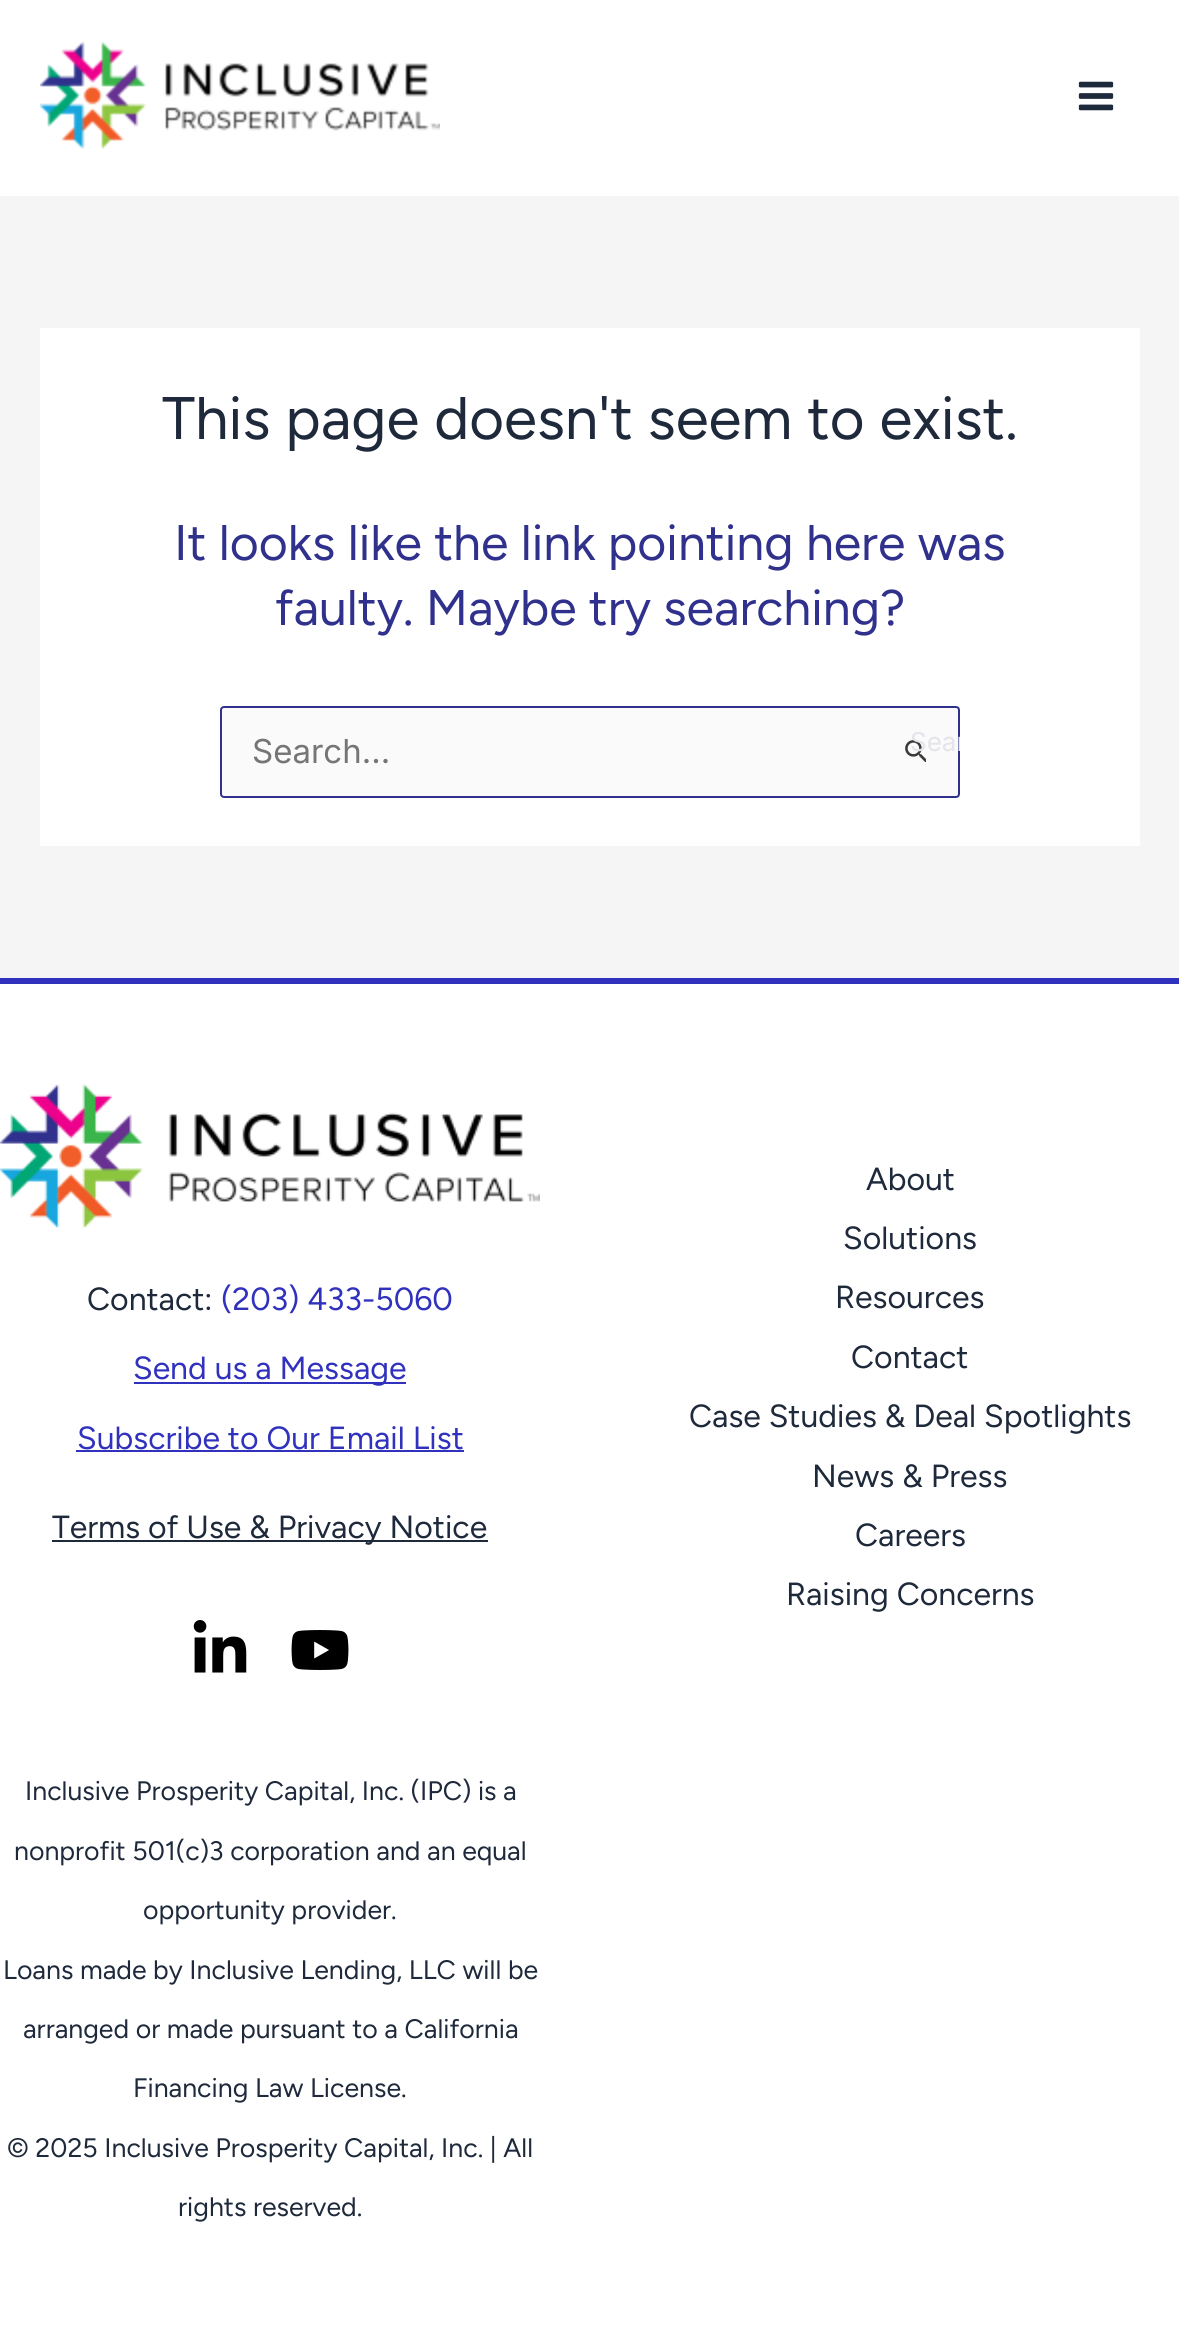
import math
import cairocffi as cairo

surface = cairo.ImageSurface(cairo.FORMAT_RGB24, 1179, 2336)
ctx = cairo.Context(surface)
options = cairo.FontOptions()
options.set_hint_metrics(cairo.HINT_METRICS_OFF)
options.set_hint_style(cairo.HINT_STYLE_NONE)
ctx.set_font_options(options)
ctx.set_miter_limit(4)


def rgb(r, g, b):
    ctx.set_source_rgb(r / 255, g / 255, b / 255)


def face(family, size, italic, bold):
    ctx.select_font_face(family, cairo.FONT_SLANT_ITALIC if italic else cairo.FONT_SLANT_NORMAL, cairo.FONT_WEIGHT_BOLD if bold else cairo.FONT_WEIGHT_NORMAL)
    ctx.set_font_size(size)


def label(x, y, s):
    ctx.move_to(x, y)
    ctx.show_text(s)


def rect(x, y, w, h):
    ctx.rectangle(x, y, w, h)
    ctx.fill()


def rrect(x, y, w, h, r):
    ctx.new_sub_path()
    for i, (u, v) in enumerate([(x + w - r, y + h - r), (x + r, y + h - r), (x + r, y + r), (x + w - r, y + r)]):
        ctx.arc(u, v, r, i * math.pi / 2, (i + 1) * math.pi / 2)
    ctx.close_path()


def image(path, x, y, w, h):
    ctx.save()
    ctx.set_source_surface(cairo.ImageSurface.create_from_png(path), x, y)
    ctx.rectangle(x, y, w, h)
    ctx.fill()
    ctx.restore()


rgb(245, 245, 245)
ctx.paint()
rgb(255, 255, 255)
rect(0, 0, 1179, 196)
image('image0.png', 40, 42, 400, 107)
image('image1.png', 1078, 81, 36, 30)
rect(40, 328, 1100, 518)
face('Figtree', 60, 0, 0)
rgb(30, 41, 59)
label(162, 439, 'This page doesn\'t seem to exist.')
face('Figtree', 50, 0, 0)
rgb(48, 49, 140)
label(174, 560, 'It looks like the link pointing here was')
label(275, 625, 'faulty. Maybe try searching?')
rgb(250, 250, 250)
rrect(221, 707, 738, 90, 3)
ctx.fill_preserve()
rgb(48, 49, 140)
ctx.stroke()
face('Inter', 33, 0, 0)
rgb(117, 117, 117)
label(252, 763, 'Search...')
image('image2.png', 905, 740, 21, 22)
ctx.save()
rrect(870, 706, 90, 76, 4)
ctx.clip()
face('Inter', 26, 0, 0)
rgb(228, 228, 234)
label(910, 751, 'Sear')
ctx.restore()
rgb(48, 49, 188)
rect(0, 978, 1179, 6)
rgb(255, 255, 255)
rect(0, 984, 1179, 1352)
image('image3.png', 0, 1084, 540, 145)
face('Figtree', 32, 0, 0)
rgb(30, 41, 59)
label(87, 1310, 'Contact:')
rgb(48, 49, 188)
label(221, 1310, '(203) 433-5060')
rect(134, 1382, 272, 2)
label(133, 1379, 'Send us a Message')
label(77, 1449, 'Subscribe to Our Email List')
rect(76, 1450, 388, 2)
rgb(30, 41, 59)
rect(52, 1540, 436, 2)
label(52, 1538, 'Terms of Use & Privacy Notice')
image('image4.png', 193, 1620, 54, 53)
image('image5.png', 291, 1630, 58, 40)
label(866, 1190, 'About')
label(843, 1249, 'Solutions')
label(835, 1308, 'Resources')
label(851, 1368, 'Contact')
label(689, 1427, 'Case Studies & Deal Spotlights')
label(812, 1487, 'News & Press')
label(855, 1546, 'Careers')
label(786, 1605, 'Raising Concerns')
face('Figtree', 26.7, 0, 0)
label(25, 1800, 'Inclusive Prosperity Capital, Inc. (IPC) is a')
label(14, 1860, 'nonprofit 501(c)3 corporation and an equal')
label(143, 1919, 'opportunity provider.')
label(3, 1979, 'Loans made by Inclusive Lending, LLC will be')
label(23, 2038, 'arranged or made pursuant to a California')
label(133, 2097, 'Financing Law License.')
label(7, 2157, '© 2025 Inclusive Prosperity Capital, Inc. | All')
label(178, 2216, 'rights reserved.')
surface.write_to_png('render.png')
